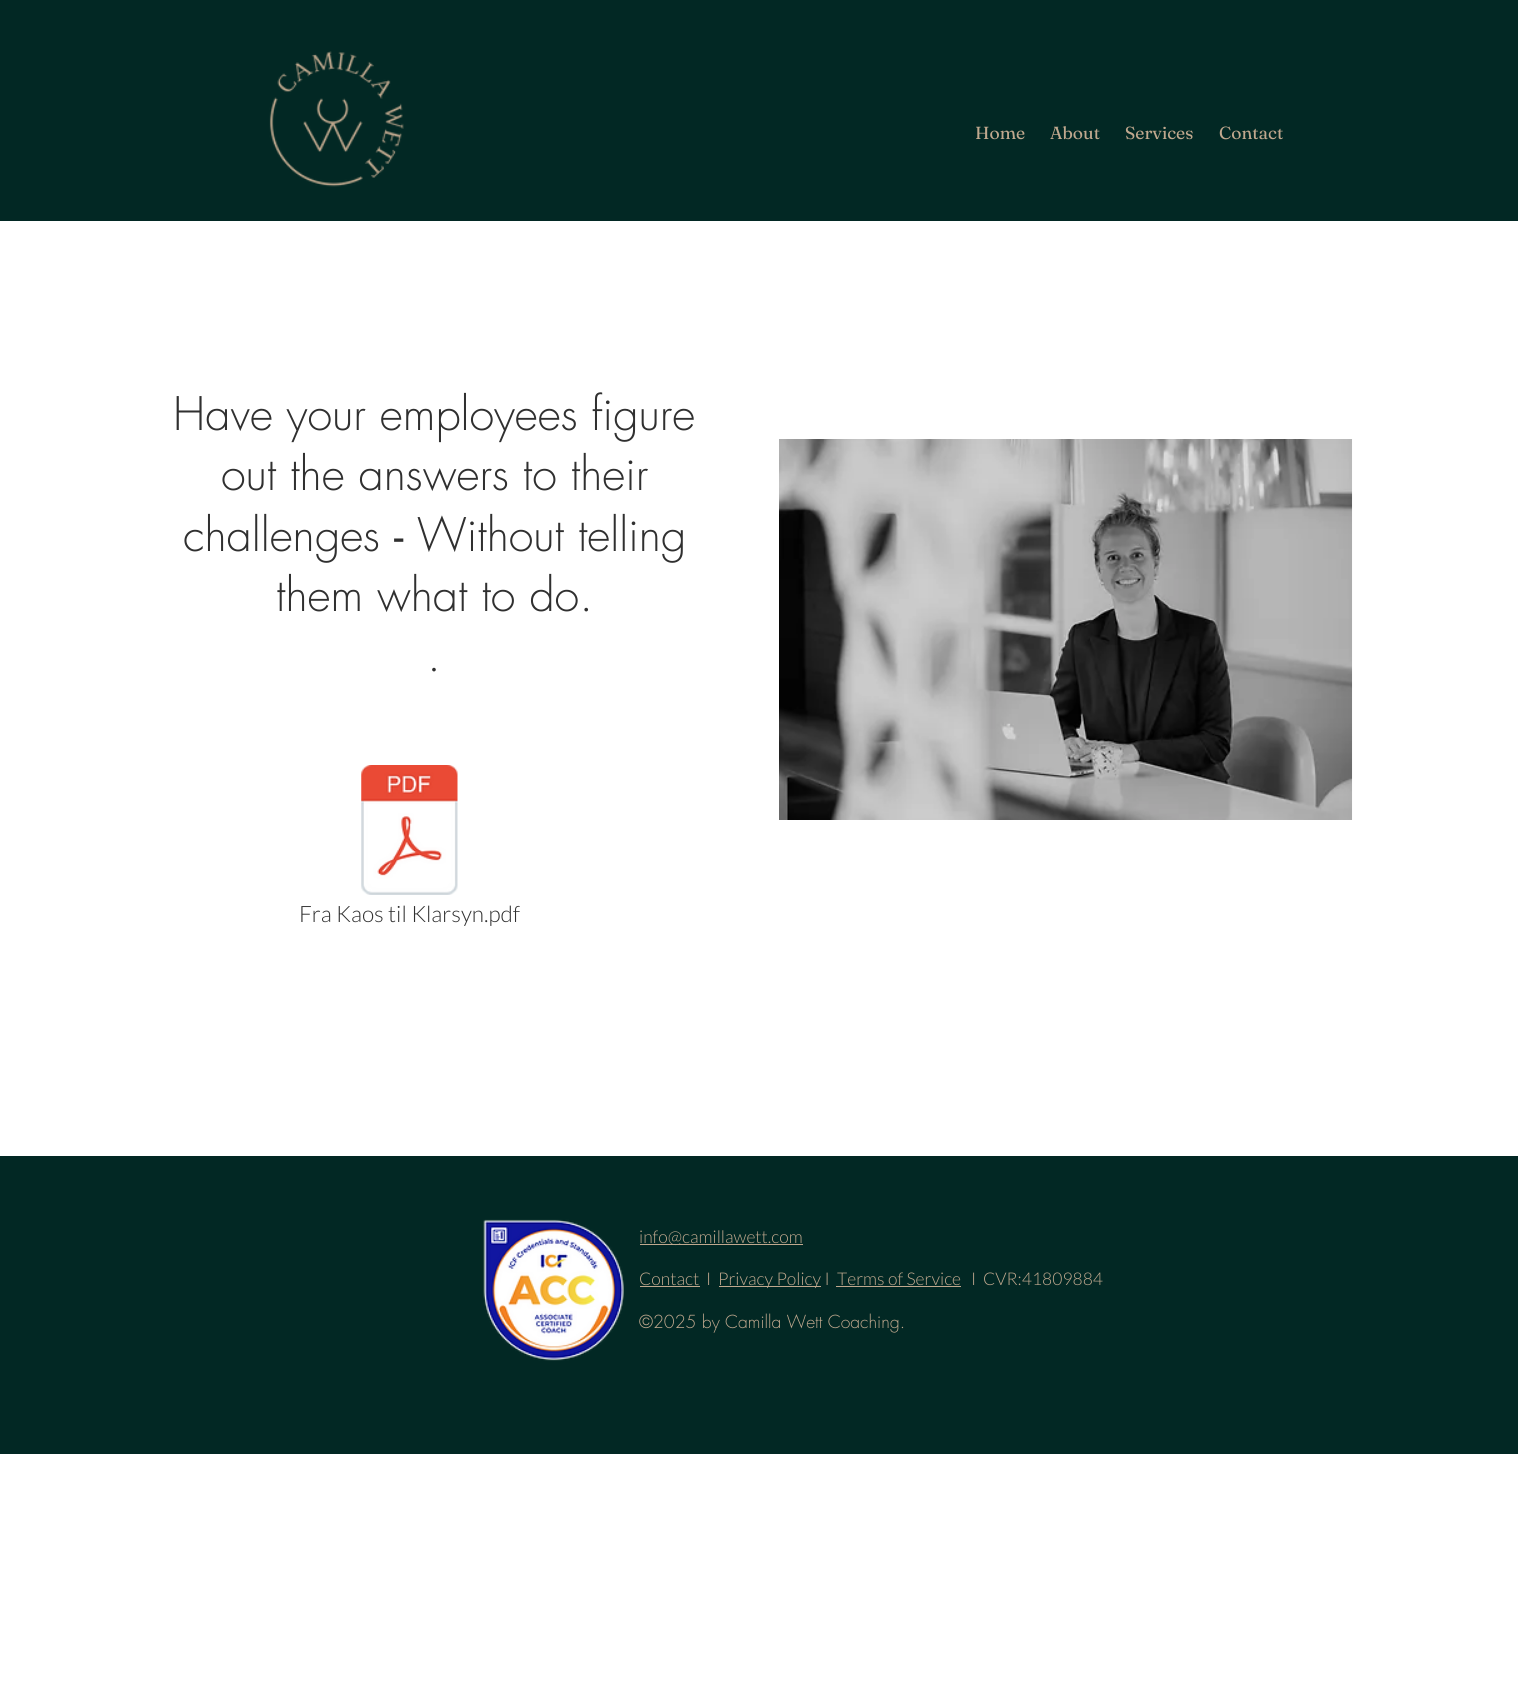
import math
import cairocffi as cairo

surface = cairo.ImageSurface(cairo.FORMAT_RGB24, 1518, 1683)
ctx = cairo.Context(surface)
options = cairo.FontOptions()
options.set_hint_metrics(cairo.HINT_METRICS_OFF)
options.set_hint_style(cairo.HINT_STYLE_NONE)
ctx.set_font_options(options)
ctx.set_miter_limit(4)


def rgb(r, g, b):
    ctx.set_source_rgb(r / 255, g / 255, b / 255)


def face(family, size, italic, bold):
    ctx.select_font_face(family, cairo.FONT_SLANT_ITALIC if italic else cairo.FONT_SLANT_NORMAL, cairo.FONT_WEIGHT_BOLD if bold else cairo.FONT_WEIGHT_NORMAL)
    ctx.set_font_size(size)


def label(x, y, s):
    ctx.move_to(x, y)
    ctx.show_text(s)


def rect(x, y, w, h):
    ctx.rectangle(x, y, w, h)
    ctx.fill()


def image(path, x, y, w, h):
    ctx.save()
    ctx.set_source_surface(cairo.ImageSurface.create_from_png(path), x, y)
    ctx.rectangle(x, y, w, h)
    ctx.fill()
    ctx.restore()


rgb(255, 255, 255)
ctx.paint()
rgb(2, 40, 36)
rect(0, 0, 1518, 221)
image('image0.png', 269, 51, 135, 136)
face('Fraunces', 17.5, 0, 0)
rgb(192, 168, 142)
label(975, 139, 'Home')
label(1050, 139, 'About')
label(1125, 139, 'Services')
label(1219, 139, 'Contact')
face('futura Light', 45, 0, 0)
rgb(48, 48, 48)
label(173, 430, 'Have your employees figure')
label(221, 490, 'out the answers to their')
label(183, 551, 'challenges')
face('futura', 45, 0, 0)
label(394, 551, '-')
face('futura Light', 45, 0, 0)
label(417, 551, 'Without telling')
label(276, 611, 'them what to do.')
label(427, 671, '.')
image('image1.png', 361, 765, 97, 130)
face('Lato Light', 22.5, 0, 0)
label(299, 922, 'Fra Kaos til Klarsyn.pdf')
image('image2.png', 779, 439, 574, 381)
rgb(2, 40, 36)
rect(0, 1156, 1518, 298)
image('image3.png', 483, 1219, 141, 142)
rgb(192, 168, 142)
rect(640, 1244, 163, 1)
face('Lato Light', 17.5, 0, 0)
label(639, 1243, 'info@camillawett.com')
label(639, 1285, 'Contact')
rect(640, 1286, 60, 1)
label(706, 1285, 'I')
rect(719, 1286, 102, 1)
label(718, 1285, 'Privacy Policy I')
label(837, 1285, 'Terms of Service')
rect(836, 1286, 125, 1)
label(971, 1285, 'I  CVR:41809884')
face('futura Light', 17.5, 0, 0)
label(639, 1328, '©2025 by Camilla Wett Coaching.')
surface.write_to_png('render.png')
